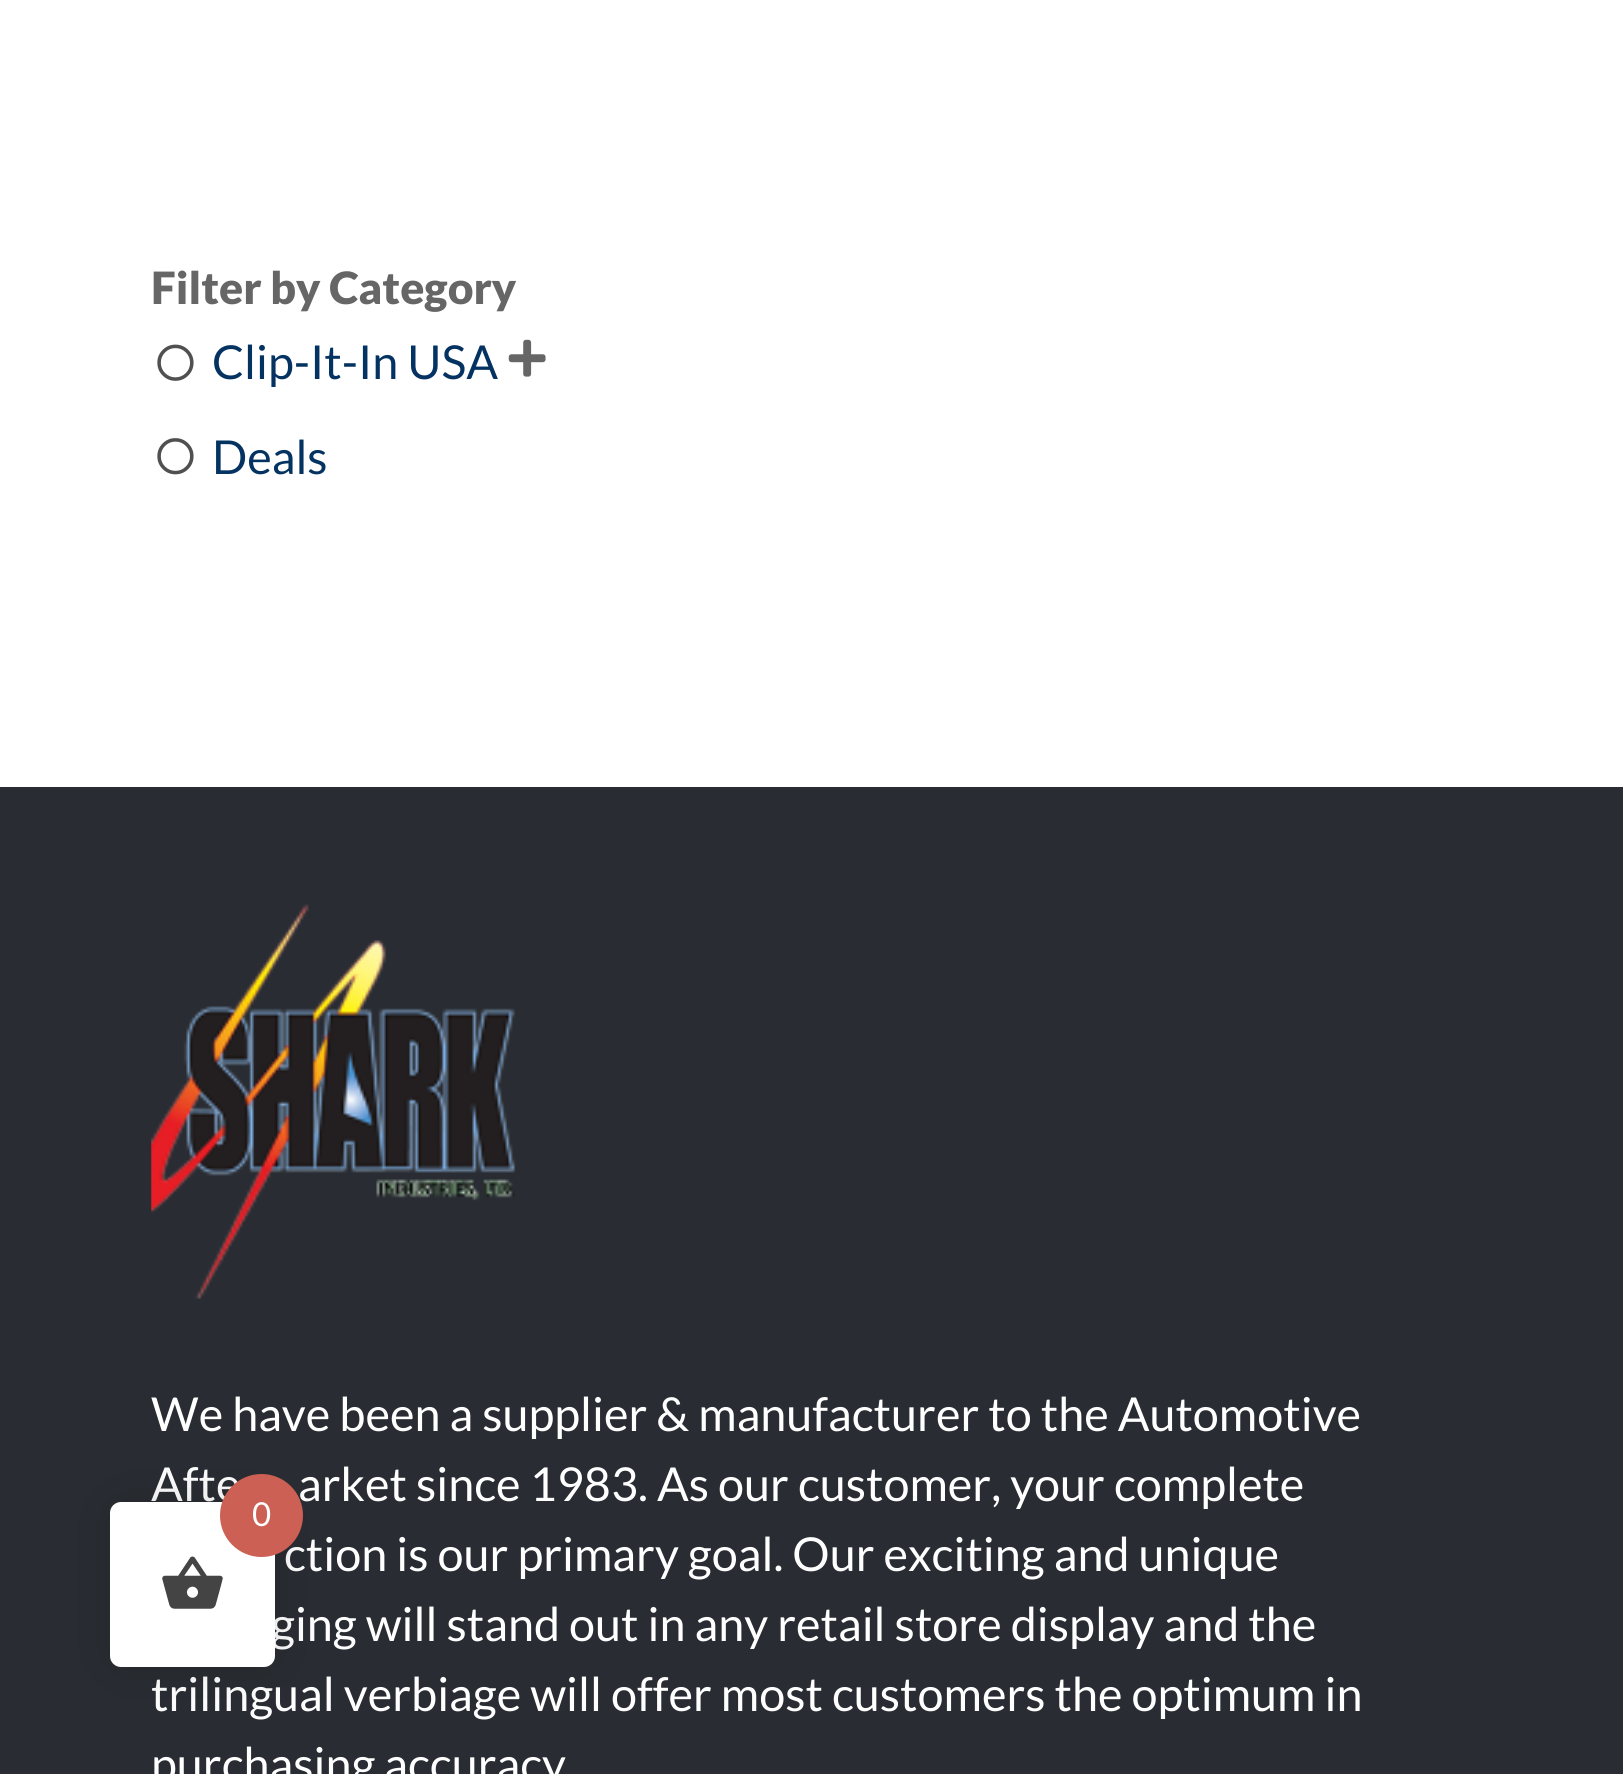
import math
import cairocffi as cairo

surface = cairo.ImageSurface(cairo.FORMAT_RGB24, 1623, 1774)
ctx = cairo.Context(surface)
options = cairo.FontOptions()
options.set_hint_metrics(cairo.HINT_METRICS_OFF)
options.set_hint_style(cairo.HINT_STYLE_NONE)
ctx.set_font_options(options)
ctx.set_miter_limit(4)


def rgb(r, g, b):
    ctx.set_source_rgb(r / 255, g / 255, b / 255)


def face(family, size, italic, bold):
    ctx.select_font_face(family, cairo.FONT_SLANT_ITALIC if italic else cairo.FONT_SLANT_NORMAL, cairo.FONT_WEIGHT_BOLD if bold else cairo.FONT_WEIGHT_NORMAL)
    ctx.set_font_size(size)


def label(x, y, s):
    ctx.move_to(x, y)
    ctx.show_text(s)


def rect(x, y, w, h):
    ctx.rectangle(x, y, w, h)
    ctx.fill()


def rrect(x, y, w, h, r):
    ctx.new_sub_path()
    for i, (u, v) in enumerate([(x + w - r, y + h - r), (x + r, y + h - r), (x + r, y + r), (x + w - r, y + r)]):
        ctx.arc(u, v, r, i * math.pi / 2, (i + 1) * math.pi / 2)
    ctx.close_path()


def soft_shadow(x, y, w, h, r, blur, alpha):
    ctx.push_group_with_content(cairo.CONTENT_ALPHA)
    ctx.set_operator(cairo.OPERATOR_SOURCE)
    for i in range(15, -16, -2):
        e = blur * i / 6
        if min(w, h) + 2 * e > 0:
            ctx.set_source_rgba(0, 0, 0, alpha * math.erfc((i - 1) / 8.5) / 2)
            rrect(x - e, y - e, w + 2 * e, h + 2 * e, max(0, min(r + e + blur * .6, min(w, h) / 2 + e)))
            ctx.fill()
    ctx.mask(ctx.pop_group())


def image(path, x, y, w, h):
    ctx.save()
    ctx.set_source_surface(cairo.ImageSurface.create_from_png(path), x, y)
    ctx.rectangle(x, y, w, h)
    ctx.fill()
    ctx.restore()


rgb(255, 255, 255)
ctx.paint()
face('Lato Black', 44.5, 0, 0)
rgb(102, 102, 102)
label(151, 304, 'Filter by Category')
image('image0.png', 157, 344, 37, 37)
face('Lato', 46.75, 0, 0)
rgb(4, 51, 98)
label(212, 379, 'Clip-It-In USA')
image('image1.png', 508, 339, 38, 38)
image('image2.png', 157, 438, 37, 37)
label(212, 474, 'Deals')
rgb(41, 45, 51)
rect(0, 787, 1623, 987)
image('image3.png', 151, 904, 365, 396)
rgb(255, 255, 255)
label(151, 1431, 'We have been a supplier & manufacturer to the Automotive')
label(151, 1501, 'Afte')
label(298, 1501, 'arket since 1983. As our customer, your complete')
label(284, 1571, 'ction is our primary goal. Our exciting and unique')
label(271, 1641, 'ging will stand out in any retail store display and the')
label(151, 1711, 'trilingual verbiage will offer most customers the optimum in')
label(151, 1781, 'purchasing accuracy')
rgb(0, 0, 0)
soft_shadow(110, 1502, 165, 165, 11, 27.5, 0.15)
rgb(255, 255, 255)
rrect(110, 1502, 165, 165, 11)
ctx.fill()
image('image4.png', 162, 1556, 61, 53)
rgb(204, 96, 85)
ctx.arc(261.5, 1515.5, 41.5, 0, 2 * math.pi)
ctx.fill()
face('Lato', 33, 0, 0)
rgb(255, 255, 255)
label(252, 1526, '0')
surface.write_to_png('render.png')
